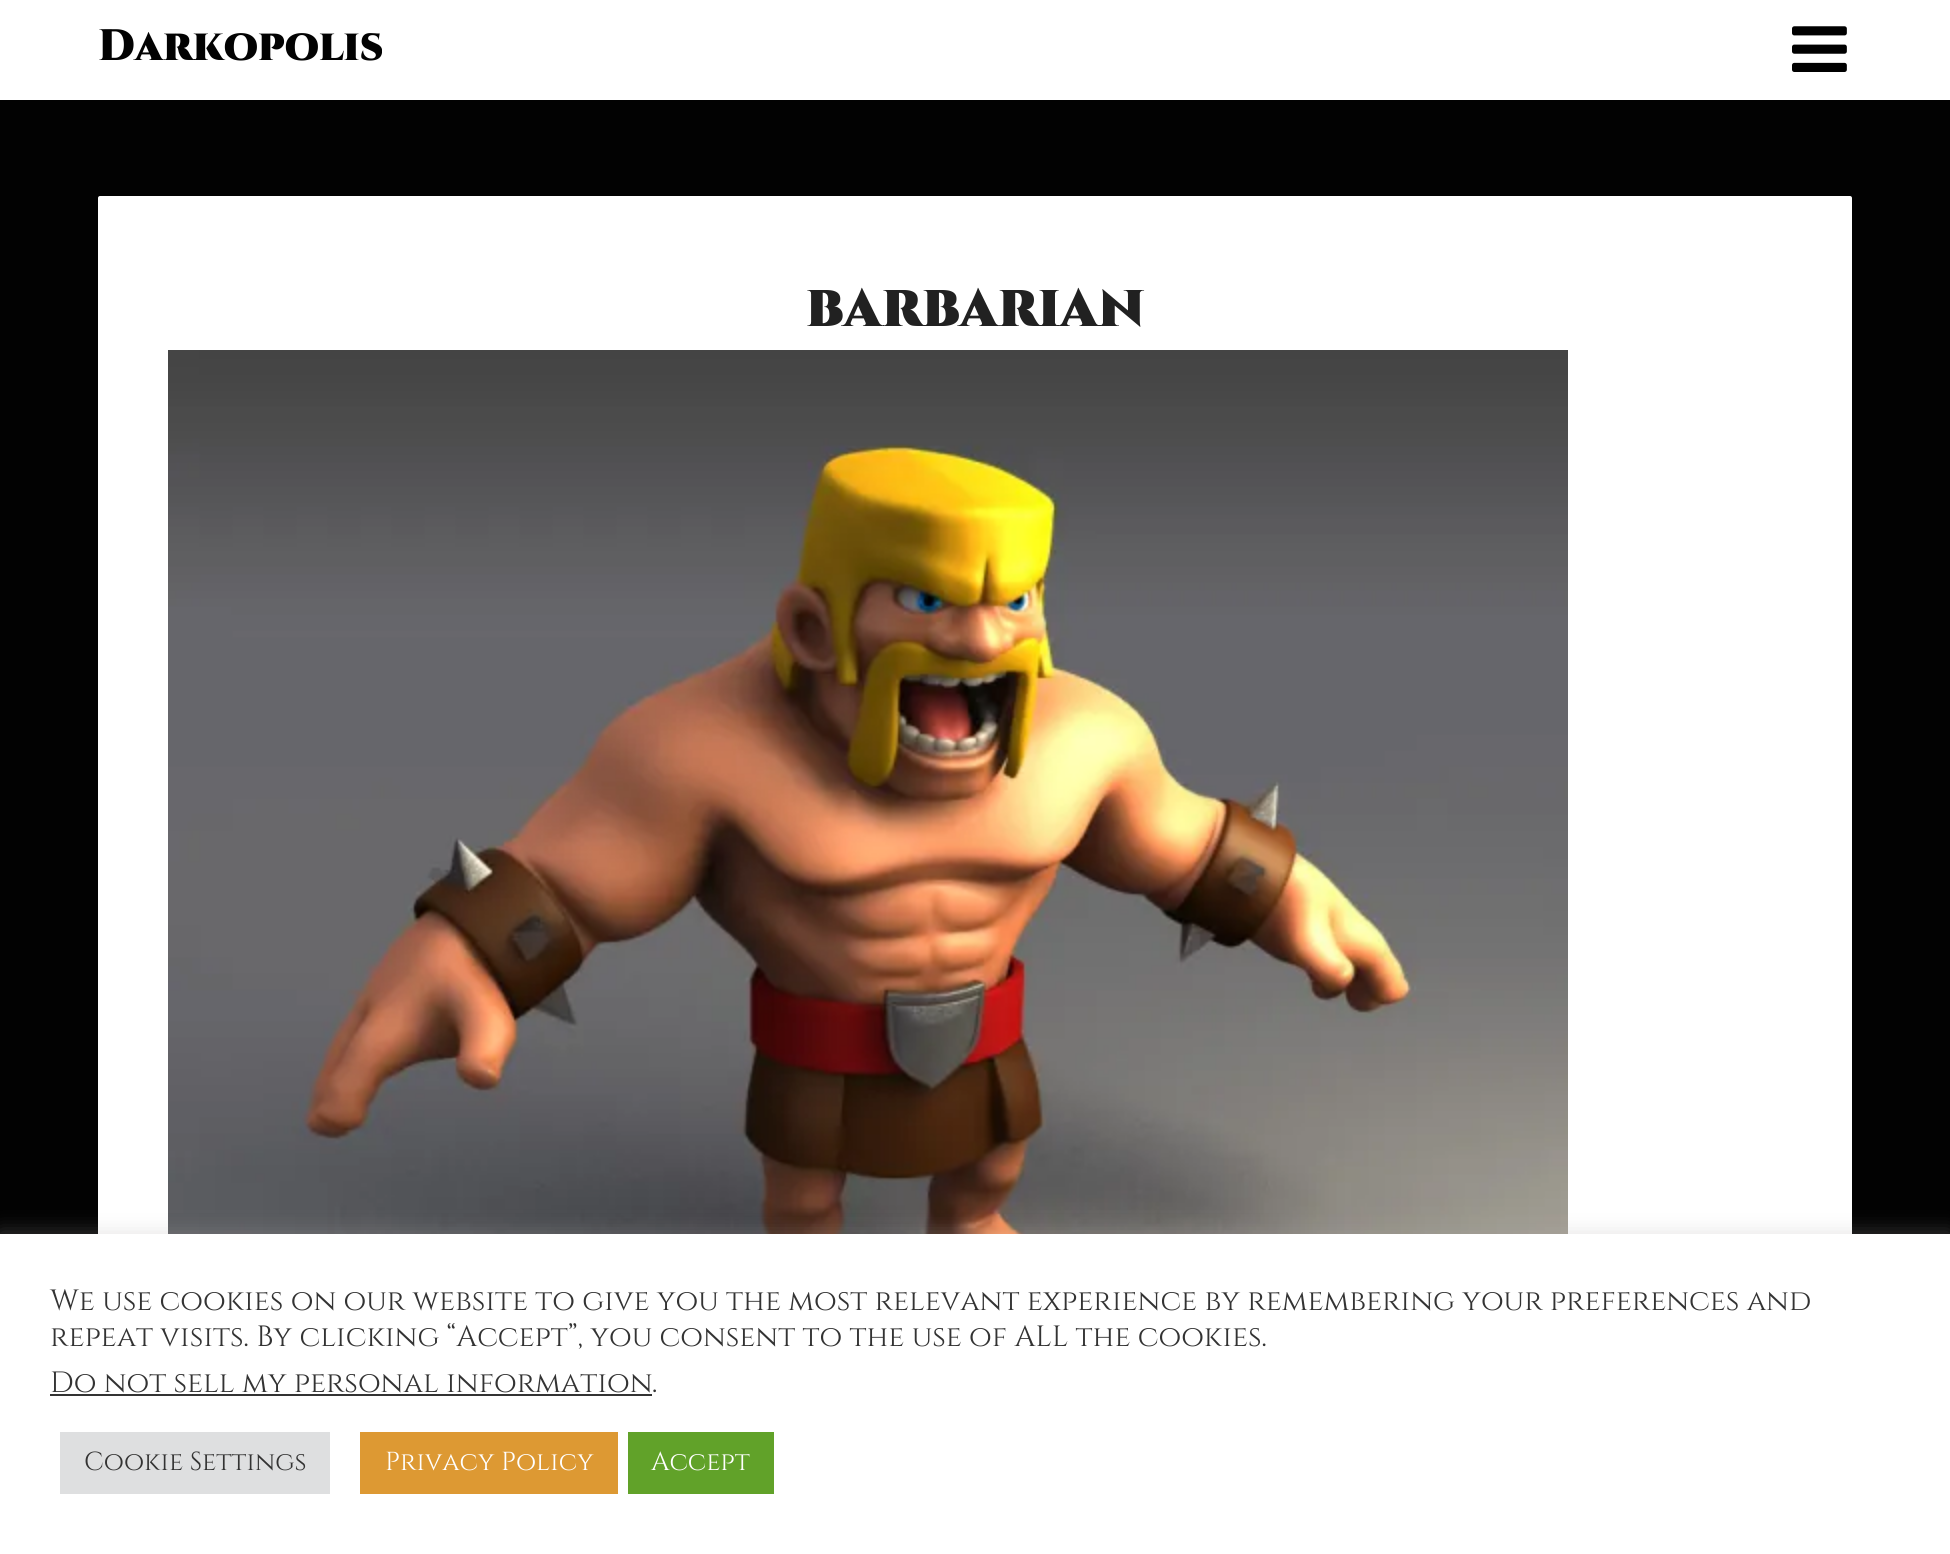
import math
import cairocffi as cairo

surface = cairo.ImageSurface(cairo.FORMAT_RGB24, 1950, 1554)
ctx = cairo.Context(surface)
options = cairo.FontOptions()
options.set_hint_metrics(cairo.HINT_METRICS_OFF)
options.set_hint_style(cairo.HINT_STYLE_NONE)
ctx.set_font_options(options)
ctx.set_miter_limit(4)


def rgb(r, g, b):
    ctx.set_source_rgb(r / 255, g / 255, b / 255)


def face(family, size, italic, bold):
    ctx.select_font_face(family, cairo.FONT_SLANT_ITALIC if italic else cairo.FONT_SLANT_NORMAL, cairo.FONT_WEIGHT_BOLD if bold else cairo.FONT_WEIGHT_NORMAL)
    ctx.set_font_size(size)


def label(x, y, s):
    ctx.move_to(x, y)
    ctx.show_text(s)


def rect(x, y, w, h):
    ctx.rectangle(x, y, w, h)
    ctx.fill()


def rrect(x, y, w, h, r):
    ctx.new_sub_path()
    for i, (u, v) in enumerate([(x + w - r, y + h - r), (x + r, y + h - r), (x + r, y + r), (x + w - r, y + r)]):
        ctx.arc(u, v, r, i * math.pi / 2, (i + 1) * math.pi / 2)
    ctx.close_path()


def soft_shadow(x, y, w, h, r, blur, alpha):
    ctx.push_group_with_content(cairo.CONTENT_ALPHA)
    ctx.set_operator(cairo.OPERATOR_SOURCE)
    for i in range(15, -16, -2):
        e = blur * i / 6
        if min(w, h) + 2 * e > 0:
            ctx.set_source_rgba(0, 0, 0, alpha * math.erfc((i - 1) / 8.5) / 2)
            rrect(x - e, y - e, w + 2 * e, h + 2 * e, max(0, min(r + e + blur * .6, min(w, h) / 2 + e)))
            ctx.fill()
    ctx.mask(ctx.pop_group())


def image(path, x, y, w, h):
    ctx.save()
    ctx.set_source_surface(cairo.ImageSurface.create_from_png(path), x, y)
    ctx.rectangle(x, y, w, h)
    ctx.fill()
    ctx.restore()


rgb(2, 2, 2)
ctx.paint()
rgb(255, 255, 255)
rect(0, 0, 1950, 100)
face('Cinzel Black', 44, 0, 0)
rgb(2, 2, 2)
label(98, 60, 'Darkopolis')
image('image0.png', 1792, 26, 55, 46)
rgb(255, 255, 255)
rrect(98, 196, 1754, 1330, 2)
ctx.fill()
face('Cinzel Black', 60, 0, 0)
rgb(33, 33, 33)
label(806, 326, 'barbarian')
image('image1.png', 168, 350, 1400, 884)
rgb(172, 171, 171)
soft_shadow(0, 1232, 1950, 320, 0, 10, 0.3)
rgb(255, 255, 255)
rect(0, 1234, 1950, 320)
face('Cinzel', 29.33, 0, 0)
rgb(51, 51, 51)
label(50, 1310, 'We use cookies on our website to give you the most relevant experience by remembering your preferences and')
label(50, 1346, 'repeat visits. By clicking “Accept”, you consent to the use of ALL the cookies.')
label(50, 1392, 'Do not sell my personal information')
rect(50, 1394, 602, 2)
label(652, 1392, '.')
rgb(222, 223, 224)
rect(60, 1432, 270, 62)
face('Cinzel', 26, 0, 0)
rgb(51, 51, 51)
label(84, 1470, 'Cookie Settings')
rgb(221, 153, 51)
rect(360, 1432, 258, 62)
rgb(255, 255, 255)
label(385, 1470, 'Privacy Policy')
rgb(97, 162, 41)
rect(628, 1432, 146, 62)
rgb(255, 255, 255)
label(651, 1470, 'Accept')
surface.write_to_png('render.png')
